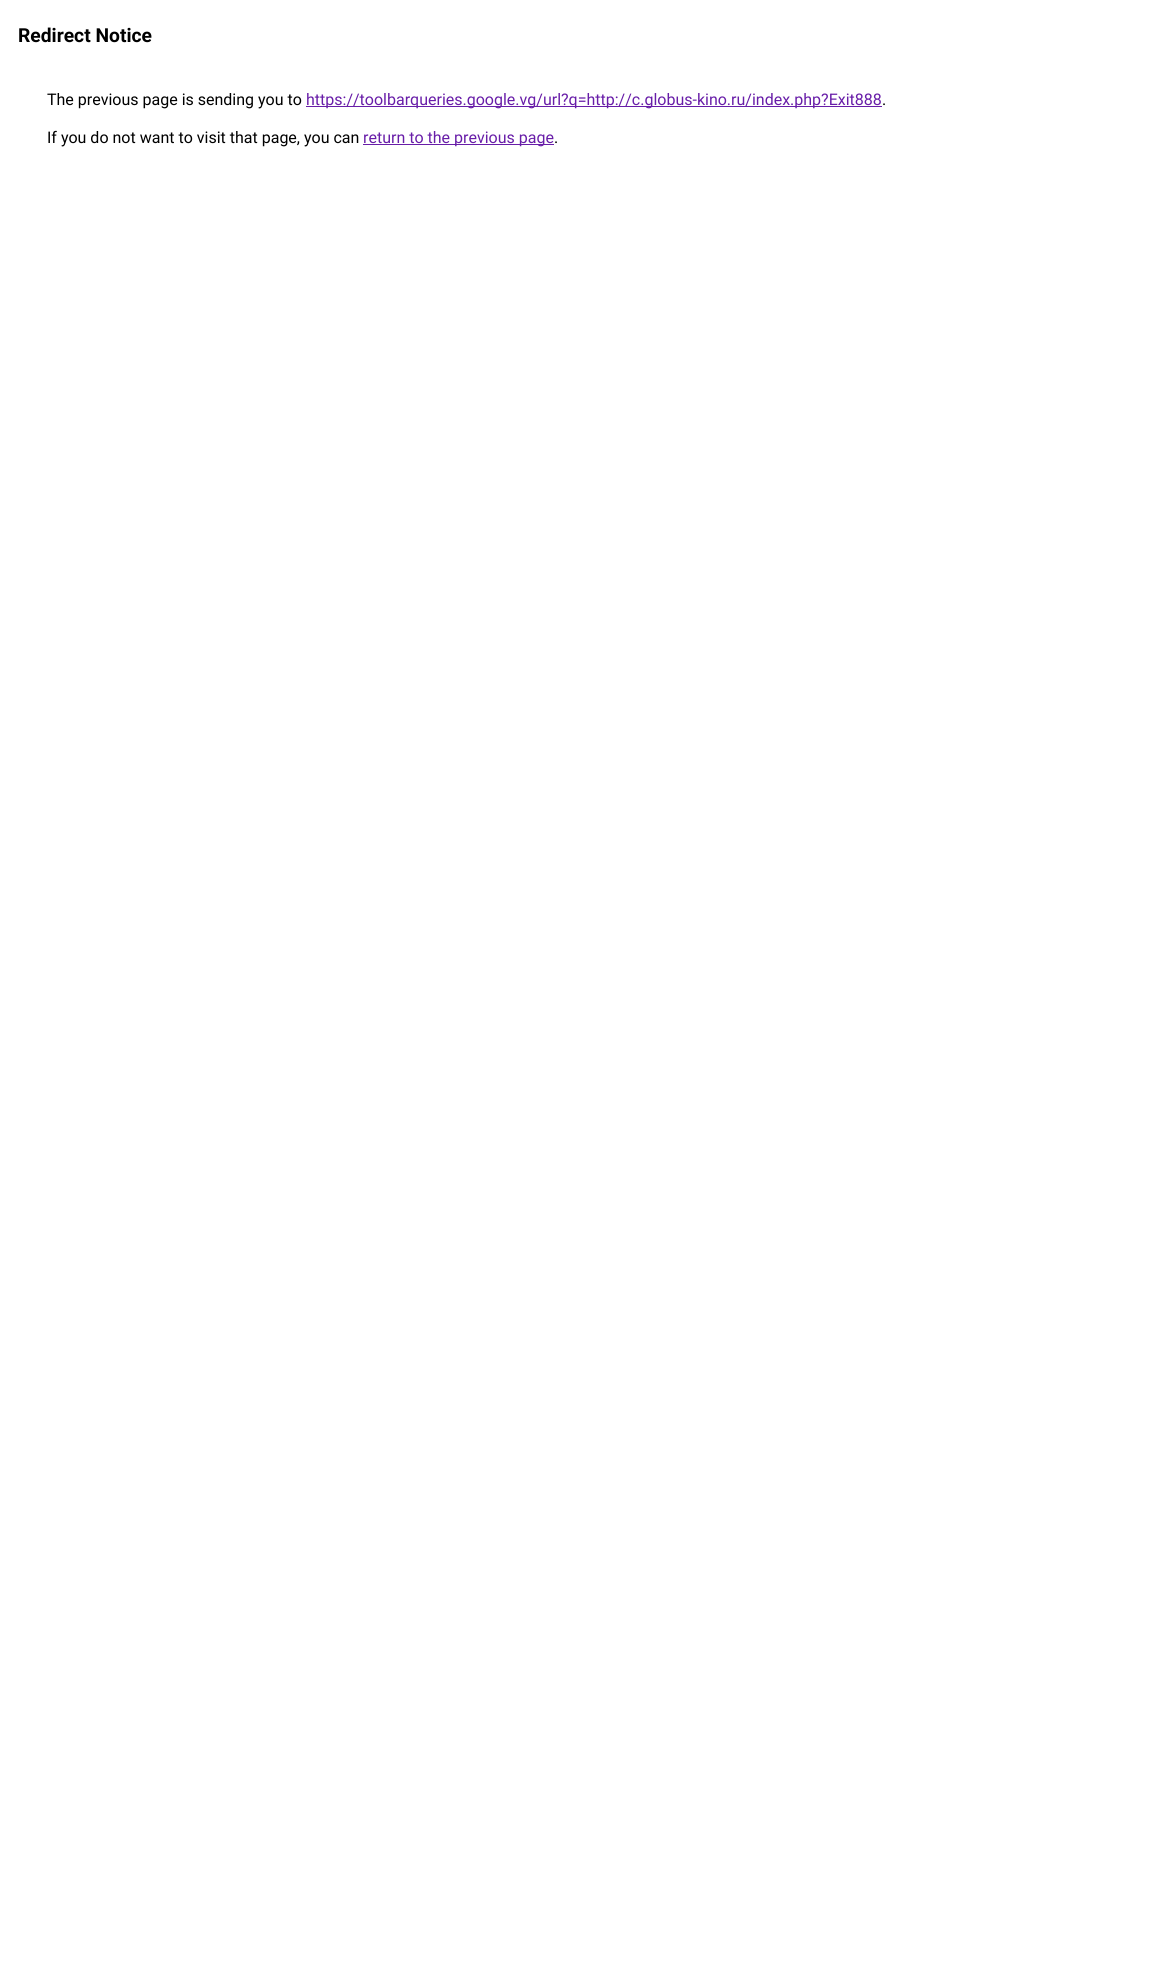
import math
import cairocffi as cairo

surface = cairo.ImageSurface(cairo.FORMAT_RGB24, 1163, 1985)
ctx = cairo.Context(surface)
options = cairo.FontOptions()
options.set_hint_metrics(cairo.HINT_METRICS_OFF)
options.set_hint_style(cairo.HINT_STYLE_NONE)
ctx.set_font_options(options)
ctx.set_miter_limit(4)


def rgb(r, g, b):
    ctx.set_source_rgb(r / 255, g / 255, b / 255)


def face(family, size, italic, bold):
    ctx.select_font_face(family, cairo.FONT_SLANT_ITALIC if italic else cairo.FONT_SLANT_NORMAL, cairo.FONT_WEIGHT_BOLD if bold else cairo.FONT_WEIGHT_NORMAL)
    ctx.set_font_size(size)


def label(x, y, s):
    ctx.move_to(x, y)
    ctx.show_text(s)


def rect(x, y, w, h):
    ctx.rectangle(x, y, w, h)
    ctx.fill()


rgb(255, 255, 255)
ctx.paint()
face('Roboto', 19.25, 0, 1)
rgb(0, 0, 0)
label(18, 42, 'Redirect Notice')
face('Roboto', 16, 0, 0)
label(47, 105, 'The previous page is sending you to')
rgb(104, 29, 168)
rect(306, 106, 576, 1)
label(306, 105, 'https://toolbarqueries.google.vg/url?q=http://c.globus-kino.ru/index.php?Exit888')
rgb(0, 0, 0)
label(882, 105, '.')
label(47, 143, 'If you do not want to visit that page, you can')
rgb(104, 29, 168)
rect(363, 144, 191, 1)
label(363, 143, 'return to the previous page')
rgb(0, 0, 0)
label(554, 143, '.')
surface.write_to_png('render.png')
